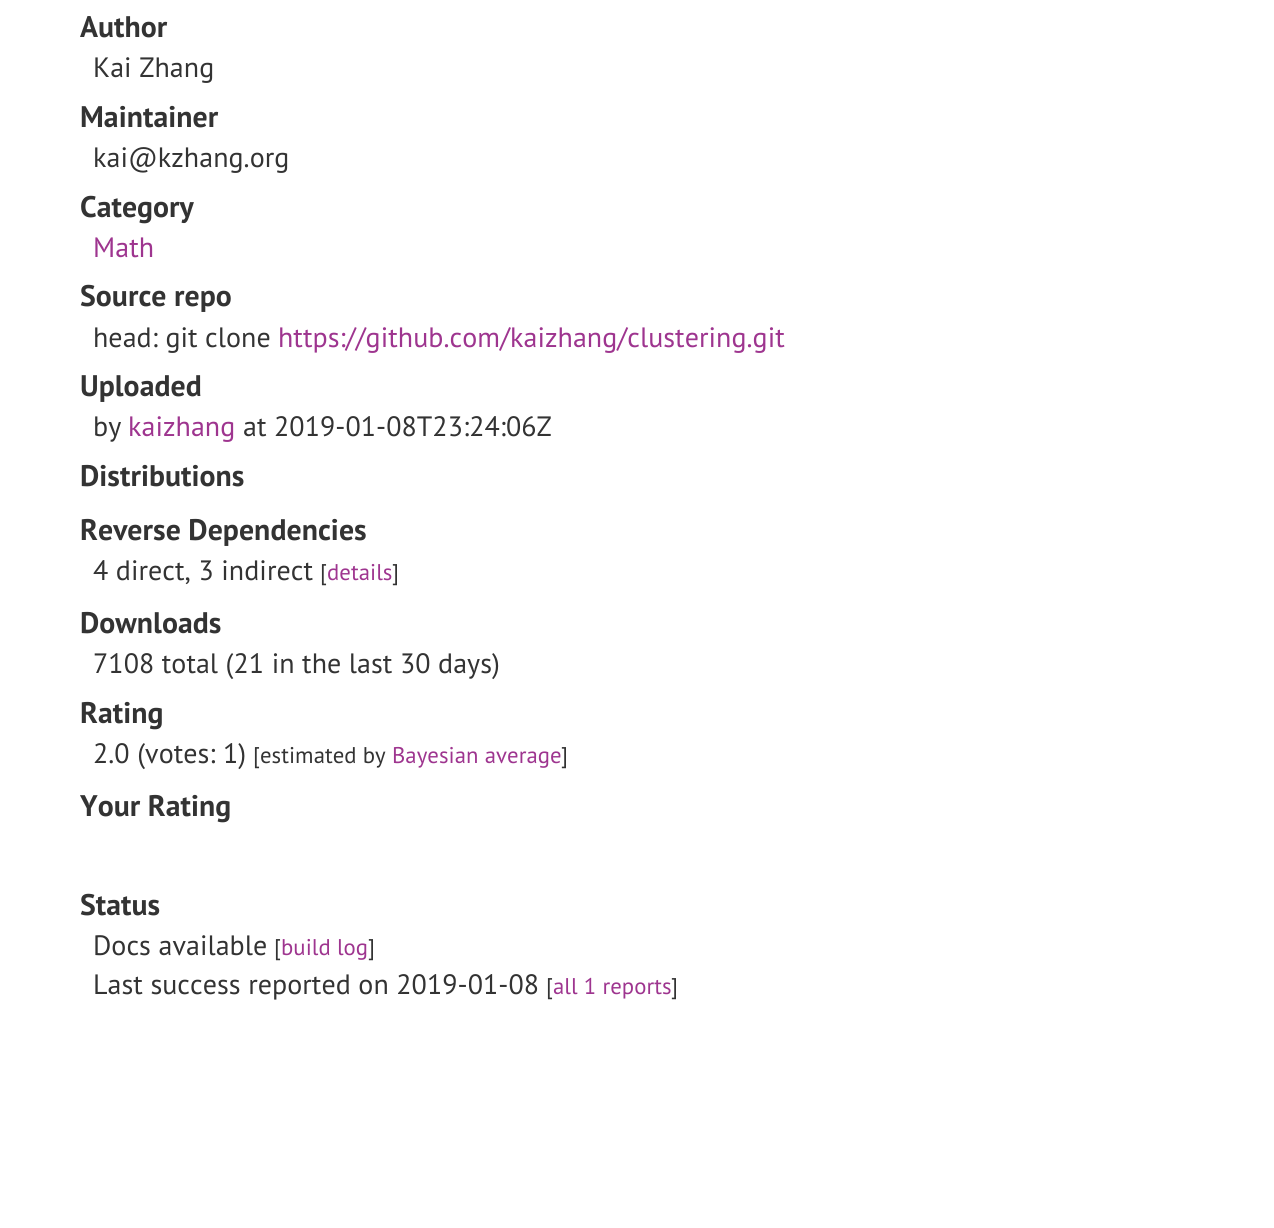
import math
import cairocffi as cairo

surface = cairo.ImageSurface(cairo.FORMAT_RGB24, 1274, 1228)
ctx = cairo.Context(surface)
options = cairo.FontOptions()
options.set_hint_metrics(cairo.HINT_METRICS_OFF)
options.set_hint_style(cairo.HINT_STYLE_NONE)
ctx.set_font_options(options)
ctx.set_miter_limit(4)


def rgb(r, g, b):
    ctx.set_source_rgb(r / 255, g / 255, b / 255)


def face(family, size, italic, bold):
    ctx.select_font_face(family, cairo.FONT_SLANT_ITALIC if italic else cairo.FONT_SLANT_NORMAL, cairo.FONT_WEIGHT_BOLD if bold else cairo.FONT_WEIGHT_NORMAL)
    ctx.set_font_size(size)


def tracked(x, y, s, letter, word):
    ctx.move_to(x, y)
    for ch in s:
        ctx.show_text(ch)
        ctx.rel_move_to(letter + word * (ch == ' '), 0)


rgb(255, 255, 255)
ctx.paint()
face('PT Sans', 29.75, 0, 1)
rgb(51, 51, 51)
tracked(80, 37, 'Author', 0.05, 0)
face('PT Sans', 28, 0, 0)
tracked(93, 77, 'Kai Zhang', 0.05, 0)
face('PT Sans', 29.75, 0, 1)
tracked(80, 127, 'Maintainer', 0.05, 0)
face('PT Sans', 28, 0, 0)
tracked(93, 167, 'kai@kzhang.org', 0.05, 0)
face('PT Sans', 29.75, 0, 1)
tracked(80, 217, 'Category', 0.05, 0)
face('PT Sans', 28, 0, 0)
rgb(158, 53, 143)
tracked(93, 257, 'Math', 0.05, 0)
face('PT Sans', 29.75, 0, 1)
rgb(51, 51, 51)
tracked(80, 306, 'Source repo', 0.05, 0)
face('PT Sans', 28, 0, 0)
tracked(93, 347, 'head: git clone', 0.05, 0)
rgb(158, 53, 143)
tracked(278, 347, 'https://github.com/kaizhang/clustering.git', 0.05, 0)
face('PT Sans', 29.75, 0, 1)
rgb(51, 51, 51)
tracked(80, 396, 'Uploaded', 0.05, 0)
face('PT Sans', 28, 0, 0)
tracked(93, 436, 'by', 0.05, 0)
rgb(158, 53, 143)
tracked(128, 436, 'kaizhang', 0.05, 0)
rgb(51, 51, 51)
tracked(243, 436, 'at 2019-01-08T23:24:06Z', 0.05, 0)
face('PT Sans', 29.75, 0, 1)
tracked(80, 486, 'Distributions', 0.05, 0)
tracked(80, 540, 'Reverse Dependencies', 0.05, 0)
face('PT Sans', 28, 0, 0)
tracked(93, 580, '4 direct, 3 indirect', 0.05, 0)
face('PT Sans', 22.75, 0, 0)
tracked(320, 580, '[', 0.05, 0)
rgb(158, 53, 143)
tracked(327, 580, 'details', 0.05, 0)
rgb(51, 51, 51)
tracked(392, 580, ']', 0.05, 0)
face('PT Sans', 29.75, 0, 1)
tracked(80, 633, 'Downloads', 0.05, 0)
face('PT Sans', 28, 0, 0)
tracked(93, 673, '7108 total (21 in the last 30 days)', 0.05, 0)
face('PT Sans', 29.75, 0, 1)
tracked(80, 723, 'Rating', 0.05, 0)
face('PT Sans', 28, 0, 0)
tracked(93, 763, '2.0 (votes: 1)', 0.05, 0)
face('PT Sans', 22.75, 0, 0)
tracked(253, 763, '[estimated by', 0.05, 0)
rgb(158, 53, 143)
tracked(392, 763, 'Bayesian average', 0.05, 0)
rgb(51, 51, 51)
tracked(561, 763, ']', 0.05, 0)
face('PT Sans', 29.75, 0, 1)
tracked(80, 816, 'Your Rating', 0.05, 0)
tracked(80, 915, 'Status', 0.05, 0)
face('PT Sans', 28, 0, 0)
tracked(93, 955, 'Docs available', 0.05, 0)
face('PT Sans', 22.75, 0, 0)
tracked(274, 955, '[', 0.05, 0)
rgb(158, 53, 143)
tracked(281, 955, 'build log', 0.05, 0)
rgb(51, 51, 51)
tracked(368, 955, ']', 0.05, 0)
face('PT Sans', 28, 0, 0)
tracked(93, 994, 'Last success reported on 2019-01-08', 0.05, 0)
face('PT Sans', 22.75, 0, 0)
tracked(546, 994, '[', 0.05, 0)
rgb(158, 53, 143)
tracked(553, 994, 'all 1 reports', 0.05, 0)
rgb(51, 51, 51)
tracked(671, 994, ']', 0.05, 0)
surface.write_to_png('render.png')
